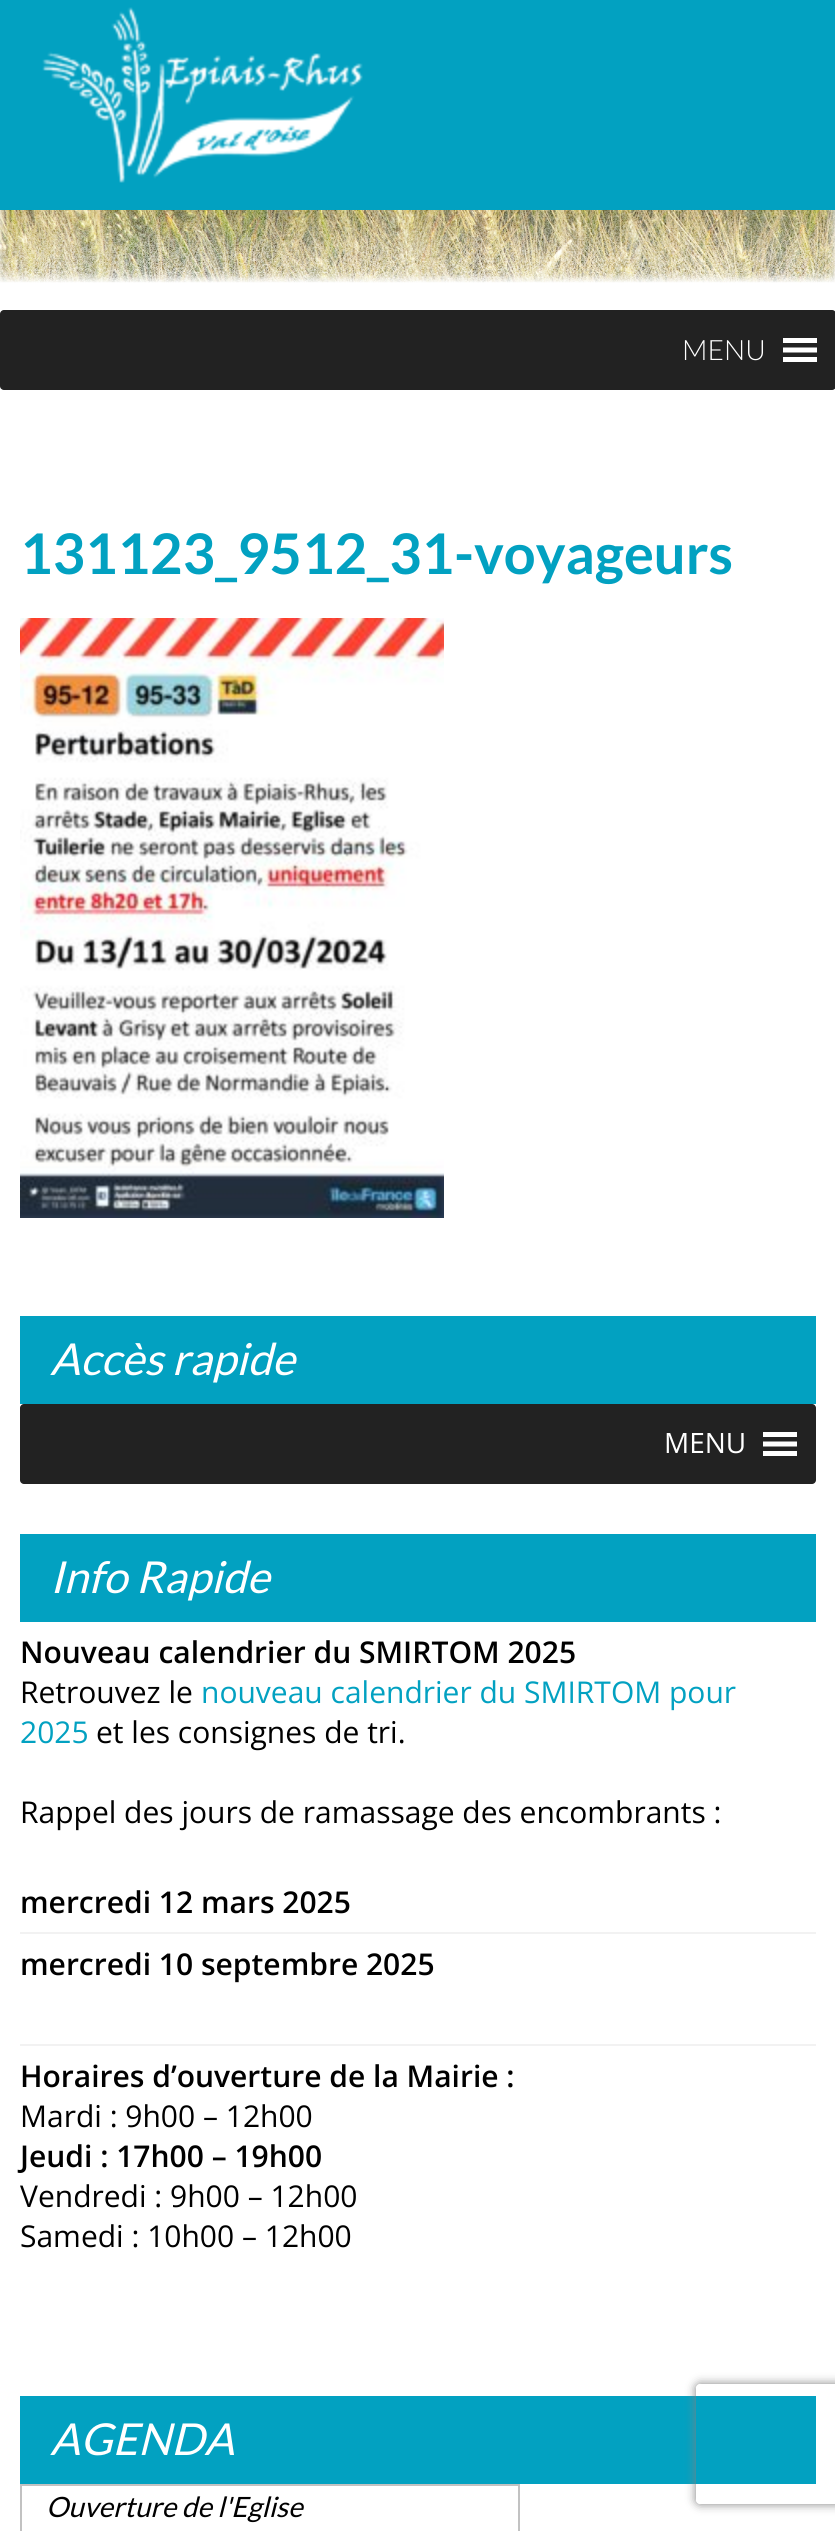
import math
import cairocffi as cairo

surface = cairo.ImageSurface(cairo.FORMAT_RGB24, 835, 2531)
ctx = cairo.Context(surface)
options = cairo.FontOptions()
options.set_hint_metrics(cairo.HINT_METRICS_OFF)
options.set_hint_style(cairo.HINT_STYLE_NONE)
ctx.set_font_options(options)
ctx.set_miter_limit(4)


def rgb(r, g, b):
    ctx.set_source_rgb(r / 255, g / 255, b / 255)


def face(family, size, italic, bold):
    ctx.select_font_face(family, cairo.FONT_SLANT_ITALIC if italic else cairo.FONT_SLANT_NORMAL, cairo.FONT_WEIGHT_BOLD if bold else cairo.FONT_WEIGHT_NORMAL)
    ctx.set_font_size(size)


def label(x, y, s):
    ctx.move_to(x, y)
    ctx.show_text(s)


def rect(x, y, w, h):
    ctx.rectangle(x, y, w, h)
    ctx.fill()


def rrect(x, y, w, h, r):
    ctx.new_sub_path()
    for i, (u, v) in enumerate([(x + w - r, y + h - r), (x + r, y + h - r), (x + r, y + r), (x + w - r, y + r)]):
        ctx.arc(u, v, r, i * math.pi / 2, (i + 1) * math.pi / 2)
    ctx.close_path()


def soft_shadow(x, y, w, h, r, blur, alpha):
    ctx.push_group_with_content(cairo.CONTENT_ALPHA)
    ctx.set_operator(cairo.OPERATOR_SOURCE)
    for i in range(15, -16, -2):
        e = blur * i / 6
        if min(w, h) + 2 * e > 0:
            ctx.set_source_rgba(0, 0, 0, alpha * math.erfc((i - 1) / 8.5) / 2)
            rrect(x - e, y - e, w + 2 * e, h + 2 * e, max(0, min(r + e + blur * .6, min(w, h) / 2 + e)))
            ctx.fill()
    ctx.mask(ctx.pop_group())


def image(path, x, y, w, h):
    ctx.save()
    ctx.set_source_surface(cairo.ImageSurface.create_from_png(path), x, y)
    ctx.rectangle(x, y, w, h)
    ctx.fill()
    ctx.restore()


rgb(255, 255, 255)
ctx.paint()
image('image0.png', 0, 210, 835, 73)
rgb(2, 161, 193)
rect(0, 0, 835, 210)
image('image1.png', 42, 7, 321, 176)
rgb(34, 34, 34)
rrect(0, 310, 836, 80, 4)
ctx.fill()
face('Lato Light', 28, 0, 0)
rgb(255, 255, 255)
label(682, 360, 'MENU')
ctx.new_path()
ctx.move_to(783, 362)
ctx.line_to(817, 362)
ctx.line_to(817, 357)
ctx.line_to(783, 357)
ctx.close_path()
ctx.move_to(783, 338)
ctx.line_to(783, 343)
ctx.line_to(817, 343)
ctx.line_to(817, 338)
ctx.close_path()
ctx.move_to(783, 352.5)
ctx.line_to(817, 352.5)
ctx.line_to(817, 347.5)
ctx.line_to(783, 347.5)
ctx.close_path()
ctx.fill()
face('Lato', 56, 0, 1)
rgb(2, 161, 193)
label(20, 574, '131123_9512_31-voyageurs')
image('image2.png', 20, 618, 424, 600)
rect(20, 1316, 796, 88)
face('Lato', 44, 1, 0)
rgb(255, 255, 255)
label(50, 1375, 'Accès rapide')
rgb(34, 34, 34)
rrect(20, 1404, 796, 80, 4)
ctx.fill()
face('Open Sans', 28, 0, 0)
rgb(255, 255, 255)
label(664, 1453, 'MENU')
ctx.new_path()
ctx.move_to(763, 1456)
ctx.line_to(797, 1456)
ctx.line_to(797, 1451)
ctx.line_to(763, 1451)
ctx.close_path()
ctx.move_to(763, 1432)
ctx.line_to(763, 1437)
ctx.line_to(797, 1437)
ctx.line_to(797, 1432)
ctx.close_path()
ctx.move_to(763, 1446.5)
ctx.line_to(797, 1446.5)
ctx.line_to(797, 1441.5)
ctx.line_to(763, 1441.5)
ctx.close_path()
ctx.fill()
rgb(2, 161, 193)
rect(20, 1534, 796, 88)
face('Lato', 44, 1, 0)
rgb(255, 255, 255)
label(50, 1593, 'Info Rapide')
rgb(242, 242, 242)
rect(20, 2044, 796, 2)
face('Open Sans SemiBold', 30, 0, 0)
rgb(0, 0, 0)
label(20, 1663, 'Nouveau calendrier du SMIRTOM 2025')
face('Open Sans', 30, 0, 0)
label(20, 1703, 'Retrouvez le')
rgb(2, 161, 193)
label(201, 1703, 'nouveau calendrier du SMIRTOM pour')
label(20, 1743, '2025')
rgb(0, 0, 0)
label(96, 1743, 'et les consignes de tri.')
label(20, 1823, 'Rappel des jours de ramassage des encombrants :')
rgb(242, 242, 242)
rect(20, 1932, 796, 2)
face('Open Sans SemiBold', 30, 0, 0)
rgb(0, 0, 0)
label(20, 1913, 'mercredi 12 mars 2025')
label(20, 1975, 'mercredi 10 septembre 2025')
label(20, 2087, 'Horaires d’ouverture de la Mairie :')
face('Open Sans', 30, 0, 0)
label(20, 2127, 'Mardi : 9h00 – 12h00')
face('Open Sans SemiBold', 30, 0, 0)
label(20, 2167, 'Jeudi : 17h00 – 19h00')
face('Open Sans', 30, 0, 0)
label(20, 2207, 'Vendredi : 9h00 – 12h00')
label(20, 2247, 'Samedi : 10h00 – 12h00')
rgb(2, 161, 193)
rect(20, 2396, 796, 88)
face('Lato', 44, 1, 0)
rgb(255, 255, 255)
label(50, 2455, 'AGENDA')
ctx.rectangle(21, 2485, 498, 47)
rgb(194, 194, 194)
ctx.stroke()
face('Lato', 28, 1, 0)
rgb(0, 0, 0)
label(46, 2517, 'Ouverture de l\'Eglise')
ctx.save()
ctx.set_fill_rule(cairo.FILL_RULE_EVEN_ODD)
ctx.new_path()
ctx.move_to(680, 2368)
ctx.line_to(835, 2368)
ctx.line_to(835, 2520)
ctx.line_to(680, 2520)
ctx.close_path()
ctx.move_to(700, 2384)
ctx.line_to(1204, 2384)
ctx.curve_to(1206, 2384, 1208, 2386, 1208, 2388)
ctx.line_to(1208, 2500)
ctx.curve_to(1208, 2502, 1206, 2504, 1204, 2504)
ctx.line_to(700, 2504)
ctx.curve_to(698, 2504, 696, 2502, 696, 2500)
ctx.line_to(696, 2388)
ctx.curve_to(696, 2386, 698, 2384, 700, 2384)
ctx.close_path()
ctx.clip()
rgb(128, 128, 128)
soft_shadow(696, 2384, 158, 120, 4, 5, 1)
ctx.restore()
surface.write_to_png('render.png')
